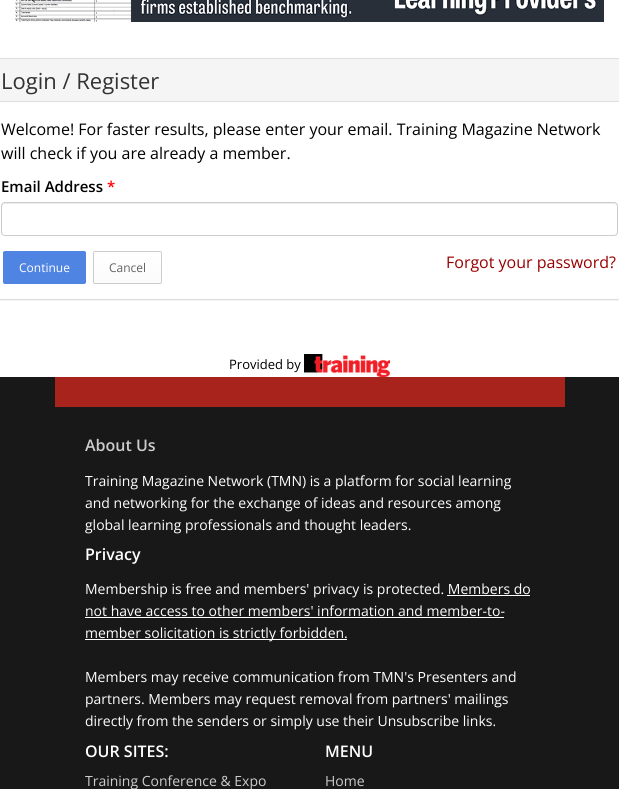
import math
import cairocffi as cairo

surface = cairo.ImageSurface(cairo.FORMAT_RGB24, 619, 789)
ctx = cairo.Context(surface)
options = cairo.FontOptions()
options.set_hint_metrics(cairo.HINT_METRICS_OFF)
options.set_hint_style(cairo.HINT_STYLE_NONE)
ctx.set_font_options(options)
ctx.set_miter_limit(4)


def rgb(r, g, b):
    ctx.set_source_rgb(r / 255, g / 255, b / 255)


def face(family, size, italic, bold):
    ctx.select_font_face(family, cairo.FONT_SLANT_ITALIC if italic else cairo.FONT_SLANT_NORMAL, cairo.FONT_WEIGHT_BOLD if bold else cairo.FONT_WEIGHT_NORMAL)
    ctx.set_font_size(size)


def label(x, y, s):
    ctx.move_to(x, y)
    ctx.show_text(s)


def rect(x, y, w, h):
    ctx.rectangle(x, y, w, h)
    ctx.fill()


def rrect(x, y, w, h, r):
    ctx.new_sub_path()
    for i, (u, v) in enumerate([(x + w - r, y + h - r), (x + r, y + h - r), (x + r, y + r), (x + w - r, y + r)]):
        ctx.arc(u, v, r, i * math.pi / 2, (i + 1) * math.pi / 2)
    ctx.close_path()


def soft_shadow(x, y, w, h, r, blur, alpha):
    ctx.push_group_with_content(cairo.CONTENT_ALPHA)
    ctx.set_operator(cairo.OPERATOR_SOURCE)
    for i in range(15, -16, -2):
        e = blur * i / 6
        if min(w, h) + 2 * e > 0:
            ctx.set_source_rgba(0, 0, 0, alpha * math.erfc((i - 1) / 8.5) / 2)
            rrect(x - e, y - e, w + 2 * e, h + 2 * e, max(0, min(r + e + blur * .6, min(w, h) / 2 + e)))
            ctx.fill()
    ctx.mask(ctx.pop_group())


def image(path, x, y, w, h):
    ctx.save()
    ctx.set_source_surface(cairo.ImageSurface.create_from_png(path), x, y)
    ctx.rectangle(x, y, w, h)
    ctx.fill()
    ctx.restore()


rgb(255, 255, 255)
ctx.paint()
image('image0.png', 15, 0, 589, 22)
ctx.save()
ctx.rectangle(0, 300, 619, 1)
ctx.clip()
rgb(0, 0, 0)
soft_shadow(-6, 59, 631, 242, 4, 0.5, 0.05)
ctx.restore()
ctx.rectangle(-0.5, 58.5, 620, 241)
rgb(221, 221, 221)
ctx.set_line_width(1)
ctx.stroke()
rgb(245, 245, 245)
rect(0, 59, 619, 42)
rgb(221, 221, 221)
rect(0, 101, 619, 1)
face('Open Sans', 22, 0, 0)
rgb(51, 51, 51)
label(1, 89, 'Login / Register')
face('Open Sans', 16, 0, 0)
rgb(0, 0, 0)
label(1, 135, 'Welcome! For faster results, please enter your email. Training Magazine Network')
label(1, 159, 'will check if you are already a member.')
face('Open Sans SemiBold', 15, 0, 0)
label(1, 192, 'Email Address')
rgb(255, 0, 0)
label(107, 192, '*')
rgb(236, 236, 236)
ctx.new_path()
ctx.move_to(5, 204)
ctx.line_to(614, 204)
ctx.curve_to(616, 204, 617, 205, 617, 207)
ctx.line_to(617, 206)
ctx.curve_to(617, 204, 616, 203, 614, 203)
ctx.line_to(5, 203)
ctx.curve_to(3, 203, 2, 204, 2, 206)
ctx.line_to(2, 207)
ctx.curve_to(2, 205, 3, 204, 5, 204)
ctx.close_path()
ctx.fill()
rrect(1.5, 202.5, 616, 33, 3.5)
rgb(204, 204, 204)
ctx.stroke()
rgb(80, 132, 227)
rrect(3.5, 251.5, 82, 32, 1.5)
ctx.fill_preserve()
ctx.stroke()
face('Open Sans', 12, 0, 0)
rgb(255, 255, 255)
label(19, 272, 'Continue')
ctx.save()
rrect(93, 251, 69, 33, 2)
ctx.clip()
gradient = cairo.LinearGradient(128, 252, 128, 283)
gradient.add_color_stop_rgba(0, 1, 1, 1, 1)
gradient.add_color_stop_rgba(1, 0.984, 0.984, 0.984, 1)
ctx.set_source(gradient)
rect(93, 252, 69, 31)
ctx.restore()
rrect(93.5, 251.5, 68, 32, 1.5)
rgb(204, 204, 204)
ctx.stroke()
rgb(98, 98, 98)
label(109, 272, 'Cancel')
face('Open Sans', 16, 0, 0)
rgb(153, 0, 0)
label(446, 268, 'Forgot your password?')
face('Open Sans', 13, 0, 0)
rgb(0, 0, 0)
label(229, 369, 'Provided by')
image('image1.png', 304, 354, 86, 23)
rgb(24, 24, 24)
rect(0, 377, 619, 412)
rgb(168, 35, 27)
rect(55, 377, 510, 30)
face('Open Sans SemiBold', 16, 0, 0)
rgb(204, 204, 204)
label(85, 451, 'About Us')
face('Open Sans', 14, 0, 0)
rgb(255, 255, 255)
label(85, 486, 'Training Magazine Network (TMN) is a platform for social learning')
label(85, 508, 'and networking for the exchange of ideas and resources among')
label(85, 530, 'global learning professionals and thought leaders.')
face('Open Sans SemiBold', 16, 0, 0)
label(85, 560, 'Privacy')
face('Open Sans', 14, 0, 0)
label(85, 594, 'Membership is free and members\' privacy is protected. Members do')
label(85, 616, 'not have access to other members\' information and member-to-')
rect(447, 595, 83, 1)
rect(85, 617, 419, 1)
rect(85, 639, 262, 1)
label(85, 638, 'member solicitation is strictly forbidden.')
label(85, 682, 'Members may receive communication from TMN\'s Presenters and')
label(85, 704, 'partners. Members may request removal from partners\' mailings')
label(85, 726, 'directly from the senders or simply use their Unsubscribe links.')
face('Open Sans SemiBold', 16, 0, 0)
label(85, 757, 'OUR SITES:')
face('Open Sans', 14, 0, 0)
rgb(204, 204, 204)
label(85, 786, 'Training Conference & Expo')
face('Open Sans SemiBold', 16, 0, 0)
rgb(255, 255, 255)
label(325, 757, 'MENU')
face('Open Sans', 14, 0, 0)
rgb(204, 204, 204)
label(325, 786, 'Home')
surface.write_to_png('render.png')
